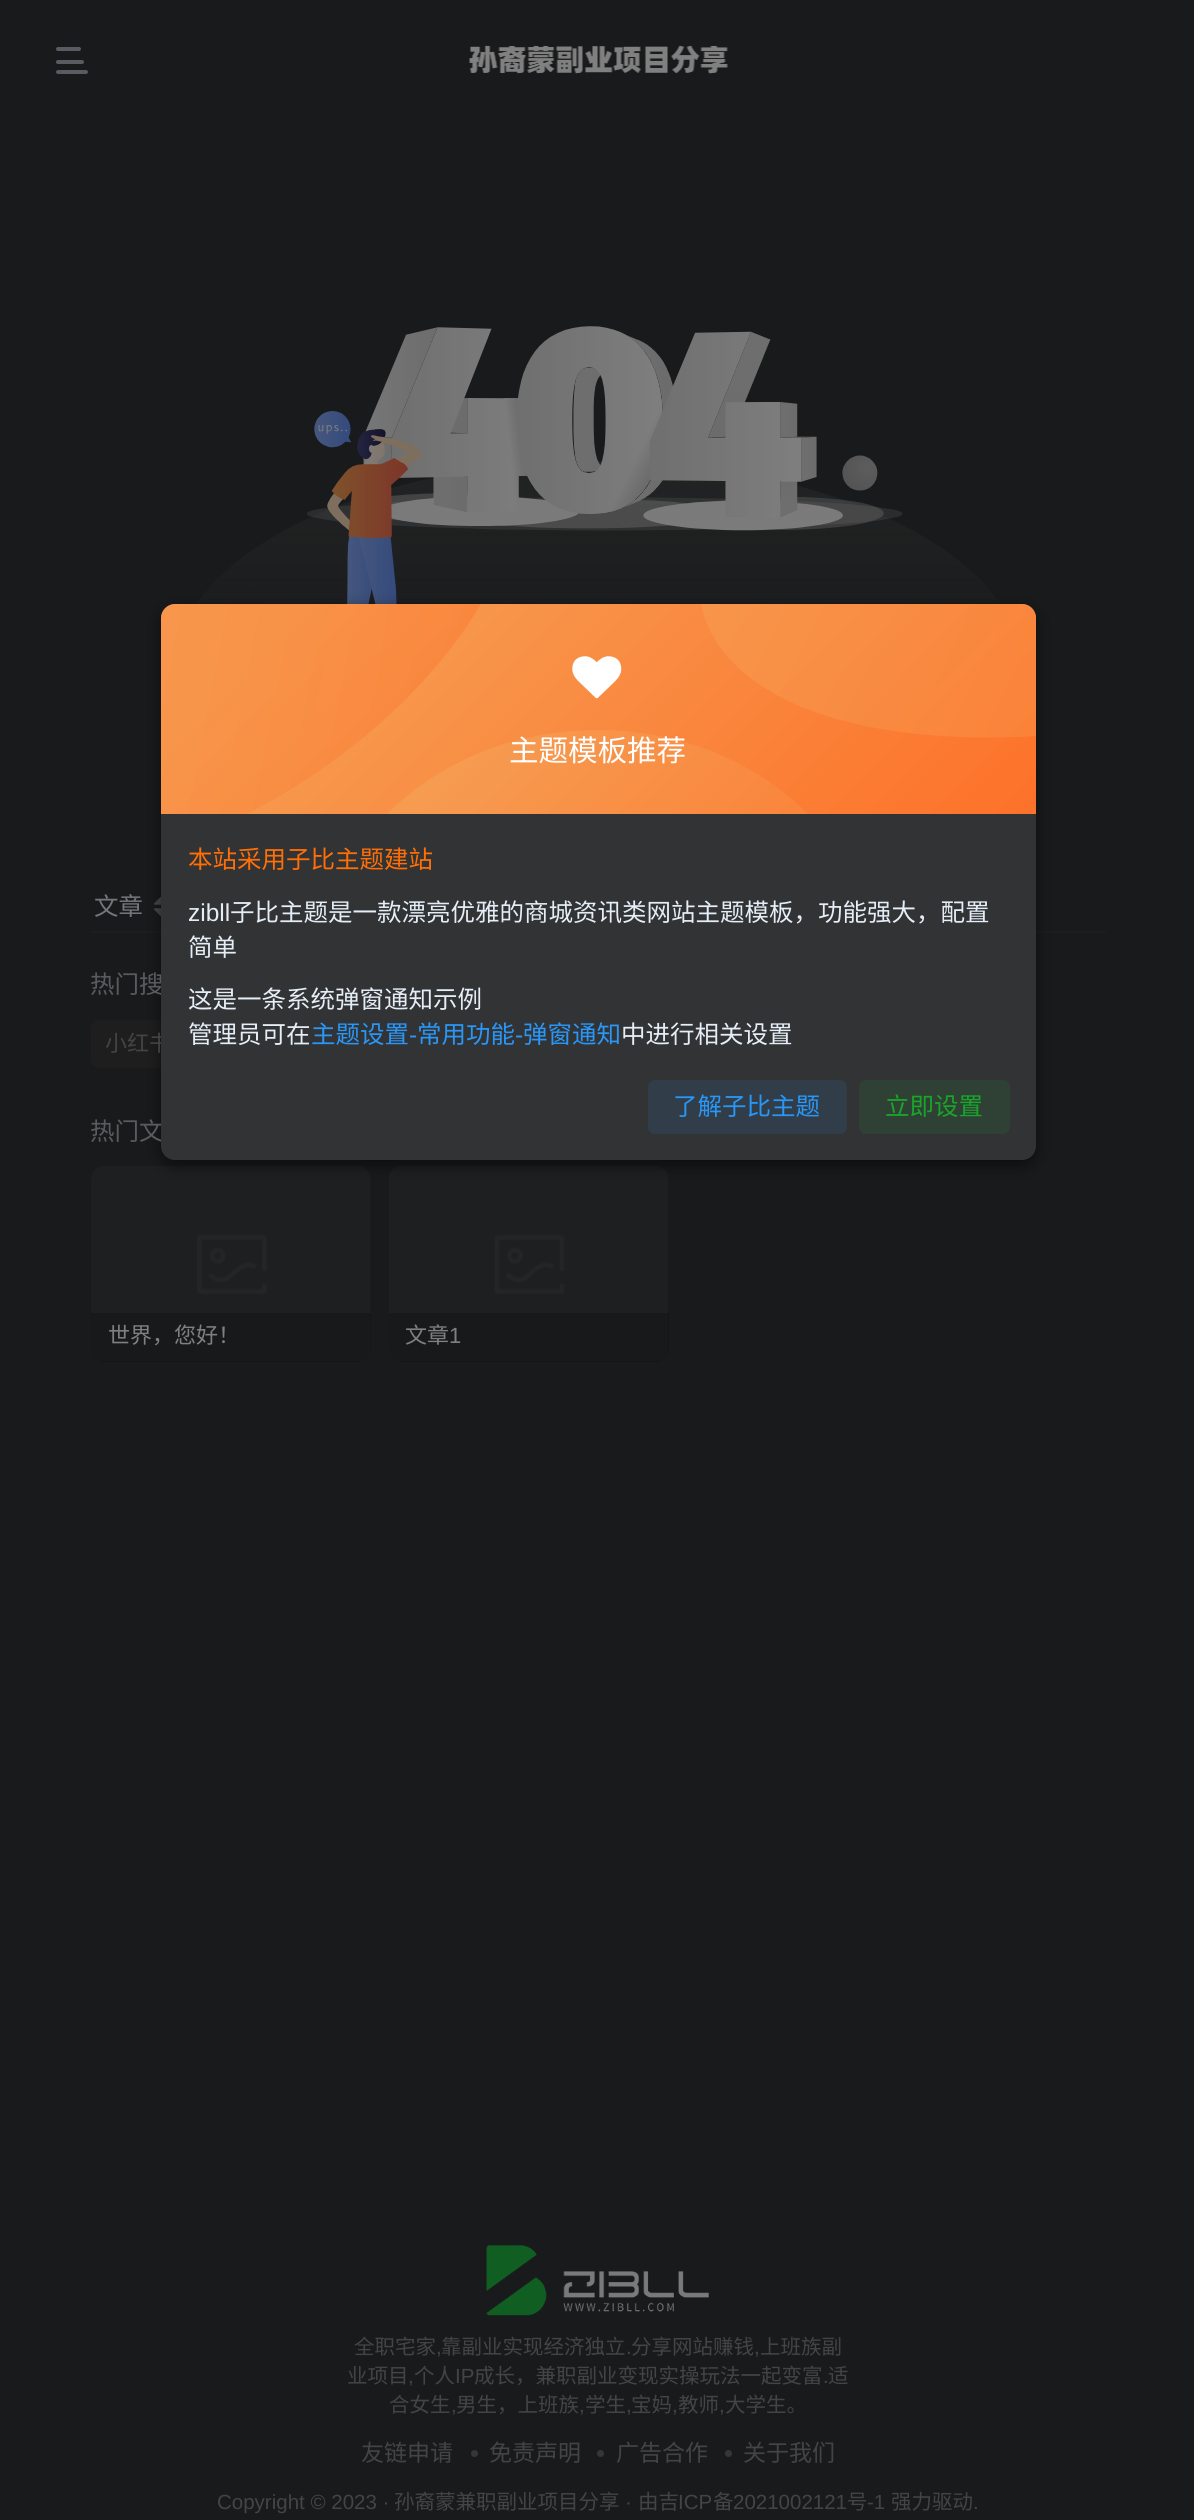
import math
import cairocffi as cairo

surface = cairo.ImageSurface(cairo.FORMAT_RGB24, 1194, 2520)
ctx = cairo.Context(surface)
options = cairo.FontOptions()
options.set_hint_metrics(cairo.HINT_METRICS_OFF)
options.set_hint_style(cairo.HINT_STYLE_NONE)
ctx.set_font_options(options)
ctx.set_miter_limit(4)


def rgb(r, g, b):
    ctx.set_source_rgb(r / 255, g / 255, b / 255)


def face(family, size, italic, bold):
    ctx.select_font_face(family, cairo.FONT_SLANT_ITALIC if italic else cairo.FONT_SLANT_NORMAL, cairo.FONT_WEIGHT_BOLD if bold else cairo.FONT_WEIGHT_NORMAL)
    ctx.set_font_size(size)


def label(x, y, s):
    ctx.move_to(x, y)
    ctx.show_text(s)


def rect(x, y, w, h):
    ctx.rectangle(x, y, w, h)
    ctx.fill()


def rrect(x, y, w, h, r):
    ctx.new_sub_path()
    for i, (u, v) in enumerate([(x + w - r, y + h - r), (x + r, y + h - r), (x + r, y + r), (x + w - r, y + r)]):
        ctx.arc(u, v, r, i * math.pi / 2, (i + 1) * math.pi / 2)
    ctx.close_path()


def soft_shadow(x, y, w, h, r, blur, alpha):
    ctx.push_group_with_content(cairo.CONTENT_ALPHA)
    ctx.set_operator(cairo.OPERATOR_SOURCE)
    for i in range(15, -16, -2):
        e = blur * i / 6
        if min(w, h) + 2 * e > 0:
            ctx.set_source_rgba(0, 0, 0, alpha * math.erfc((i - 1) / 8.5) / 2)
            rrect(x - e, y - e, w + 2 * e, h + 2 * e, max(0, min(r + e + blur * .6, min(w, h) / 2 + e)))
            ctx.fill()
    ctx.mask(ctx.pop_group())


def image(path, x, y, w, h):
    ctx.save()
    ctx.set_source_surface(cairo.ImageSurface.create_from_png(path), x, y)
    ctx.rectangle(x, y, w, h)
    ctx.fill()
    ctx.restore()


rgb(25, 26, 27)
ctx.paint()
rgb(88, 91, 95)
rrect(56, 47, 25, 4, 2)
ctx.fill()
rrect(56, 60, 28, 4, 2)
ctx.fill()
rrect(56, 70, 32, 4, 2)
ctx.fill()
image('image0.png', 469, 45, 259, 29)
image('image2.png', 197, 326, 803, 278)
image('image3.png', 154, 897, 7, 19)
rgb(28, 29, 30)
rect(91, 931, 1015, 2)
rgb(30, 30, 31)
rrect(91, 1020, 95, 48, 7)
ctx.fill()
image('image4.png', 91, 1166, 280, 195)
image('image5.png', 389, 1166, 279, 195)
rgb(0, 0, 0)
soft_shadow(161, 609, 875, 557, 14, 8, 0.5)
face('Noto Sans CJK SC', 24.5, 0, 0)
rgb(90, 91, 94)
label(90, 993, '热门搜')
face('Noto Sans CJK SC', 22, 0, 0)
rgb(68, 68, 68)
label(105, 1051, '小红书')
face('Noto Sans CJK SC', 24.5, 0, 0)
rgb(90, 91, 94)
label(90, 1140, '热门文')
rgb(50, 51, 53)
rrect(161, 604, 875, 556, 14)
ctx.fill()
gradient = cairo.LinearGradient(371, 394, 1001, 1024)
gradient.add_color_stop_rgba(0.1, 0.961, 0.624, 0.329, 1)
gradient.add_color_stop_rgba(1, 1, 0.412, 0.133, 1)
ctx.set_source(gradient)
ctx.new_path()
ctx.move_to(175, 604)
ctx.line_to(1022, 604)
ctx.curve_to(1029.5, 604, 1036, 610.5, 1036, 618)
ctx.line_to(1036, 814)
ctx.line_to(161, 814)
ctx.line_to(161, 618)
ctx.curve_to(161, 610.5, 167.5, 604, 175, 604)
ctx.close_path()
ctx.fill()
gradient = cairo.LinearGradient(329, 715, 866, 1252)
gradient.add_color_stop_rgba(0.1, 0.961, 0.624, 0.329, 1)
gradient.add_color_stop_rgba(1, 1, 0.412, 0.133, 1)
ctx.set_source(gradient)
ctx.new_path()
ctx.move_to(598, 730)
ctx.curve_to(681, 730, 756, 762, 808, 814)
ctx.line_to(387, 814)
ctx.curve_to(439, 762, 514, 730, 598, 730)
ctx.close_path()
ctx.fill()
gradient = cairo.LinearGradient(-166, 547, 582, 692)
gradient.add_color_stop_rgba(0.1, 0.961, 0.624, 0.329, 0.4)
gradient.add_color_stop_rgba(1, 1, 0.412, 0.133, 0.4)
ctx.set_source(gradient)
ctx.new_path()
ctx.move_to(175, 604)
ctx.line_to(481, 604)
ctx.curve_to(434, 683, 359, 749, 280, 796)
ctx.line_to(247, 814)
ctx.line_to(161, 814)
ctx.line_to(161, 618)
ctx.curve_to(161, 610, 167, 604, 175, 604)
ctx.close_path()
ctx.fill()
gradient = cairo.LinearGradient(721, 159, 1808, 688)
gradient.add_color_stop_rgba(0.1, 0.961, 0.624, 0.329, 0.6)
gradient.add_color_stop_rgba(1, 1, 0.412, 0.133, 0.6)
ctx.set_source(gradient)
ctx.new_path()
ctx.move_to(1036, 736)
ctx.curve_to(865, 746, 734, 704, 704, 616)
ctx.line_to(701, 604)
ctx.line_to(1022, 604)
ctx.curve_to(1030, 604, 1036, 610, 1036, 618)
ctx.close_path()
ctx.fill()
image('image1.png', 572, 656, 50, 43)
face('Noto Sans CJK SC', 29.5, 0, 0)
rgb(255, 255, 255)
label(509, 761, '主题模板推荐')
face('Noto Sans CJK SC', 24.5, 0, 0)
rgb(255, 111, 6)
label(188, 868, '本站采用子比主题建站')
face('Liberation Sans', 24.5, 0, 0)
rgb(229, 238, 247)
label(188, 921, 'zibll')
face('Noto Sans CJK SC', 24.5, 0, 0)
label(230, 921, '子比主题是一款漂亮优雅的商城资讯类网站主题模板，功能强大，配置')
label(188, 956, '简单')
label(188, 1008, '这是一条系统弹窗通知示例')
label(188, 1043, '管理员可在')
rgb(41, 151, 247)
label(311, 1043, '主题设置')
face('Liberation Sans', 24.5, 0, 0)
label(409, 1043, '-')
face('Noto Sans CJK SC', 24.5, 0, 0)
label(417, 1043, '常用功能')
face('Liberation Sans', 24.5, 0, 0)
label(515, 1043, '-')
face('Noto Sans CJK SC', 24.5, 0, 0)
label(523, 1043, '弹窗通知')
rgb(229, 238, 247)
label(621, 1043, '中进行相关设置')
rgb(49, 61, 72)
rrect(648, 1080, 199, 54, 7)
ctx.fill()
rgb(41, 151, 247)
label(673, 1115, '了解子比主题')
rgb(47, 64, 52)
rrect(859, 1080, 151, 54, 7)
ctx.fill()
rgb(24, 165, 42)
label(885, 1115, '立即设置')
rgb(115, 119, 124)
label(94, 915, '文章')
ctx.set_source_rgba(0, 0, 0, 0.2)
ctx.new_path()
ctx.move_to(91, 1313)
ctx.line_to(371, 1313)
ctx.line_to(371, 1348)
ctx.curve_to(371, 1355.5, 364.5, 1362, 357, 1362)
ctx.line_to(105, 1362)
ctx.curve_to(97.5, 1362, 91, 1355.5, 91, 1348)
ctx.close_path()
ctx.fill()
face('Noto Sans CJK SC', 22, 0, 0)
rgb(128, 128, 128)
label(108, 1343, '世界，您好！')
ctx.set_source_rgba(0, 0, 0, 0.2)
ctx.new_path()
ctx.move_to(389, 1313)
ctx.line_to(669, 1313)
ctx.line_to(669, 1348)
ctx.curve_to(669, 1355.5, 662.5, 1362, 655, 1362)
ctx.line_to(403, 1362)
ctx.curve_to(395.5, 1362, 389, 1355.5, 389, 1348)
ctx.close_path()
ctx.fill()
rgb(128, 128, 128)
label(405, 1343, '文章')
face('Liberation Sans', 22, 0, 0)
label(449, 1343, '1')
image('image6.png', 486, 2245, 223, 71)
face('Noto Sans CJK SC', 20.5, 0, 0)
rgb(68, 68, 68)
label(354, 2354, '全职宅家')
face('Liberation Sans', 20.5, 0, 0)
label(436, 2354, ',')
face('Noto Sans CJK SC', 20.5, 0, 0)
label(441, 2354, '靠副业实现经济独立')
face('Liberation Sans', 20.5, 0, 0)
label(626, 2354, '.')
face('Noto Sans CJK SC', 20.5, 0, 0)
label(631, 2354, '分享网站赚钱')
face('Liberation Sans', 20.5, 0, 0)
label(754, 2354, ',')
face('Noto Sans CJK SC', 20.5, 0, 0)
label(760, 2354, '上班族副')
label(347, 2383, '业项目')
face('Liberation Sans', 20.5, 0, 0)
label(408, 2383, ',')
face('Noto Sans CJK SC', 20.5, 0, 0)
label(414, 2383, '个人')
face('Liberation Sans', 20.5, 0, 0)
label(455, 2383, 'IP')
face('Noto Sans CJK SC', 20.5, 0, 0)
label(474, 2383, '成长，兼职副业变现实操玩法一起变富')
face('Liberation Sans', 20.5, 0, 0)
label(823, 2383, '.')
face('Noto Sans CJK SC', 20.5, 0, 0)
label(828, 2383, '适')
label(389, 2412, '合女生')
face('Liberation Sans', 20.5, 0, 0)
label(451, 2412, ',')
face('Noto Sans CJK SC', 20.5, 0, 0)
label(456, 2412, '男生，上班族')
face('Liberation Sans', 20.5, 0, 0)
label(579, 2412, ',')
face('Noto Sans CJK SC', 20.5, 0, 0)
label(585, 2412, '学生')
face('Liberation Sans', 20.5, 0, 0)
label(626, 2412, ',')
face('Noto Sans CJK SC', 20.5, 0, 0)
label(631, 2412, '宝妈')
face('Liberation Sans', 20.5, 0, 0)
label(672, 2412, ',')
face('Noto Sans CJK SC', 20.5, 0, 0)
label(678, 2412, '教师')
face('Liberation Sans', 20.5, 0, 0)
label(719, 2412, ',')
face('Noto Sans CJK SC', 20.5, 0, 0)
label(725, 2412, '大学生。')
face('Noto Sans CJK SC', 23, 0, 0)
label(361, 2461, '友链申请')
rgb(52, 54, 56)
ctx.new_path()
ctx.arc(474.5, 2453.5, 3.5, 0, 2 * math.pi)
ctx.fill()
rgb(68, 68, 68)
label(489, 2461, '免责声明')
rgb(52, 54, 56)
ctx.new_path()
ctx.arc(600.5, 2453.5, 3.5, 0, 2 * math.pi)
ctx.fill()
rgb(68, 68, 68)
label(616, 2461, '广告合作')
rgb(52, 54, 56)
ctx.new_path()
ctx.arc(728.5, 2453.5, 3.5, 0, 2 * math.pi)
ctx.fill()
rgb(68, 68, 68)
label(743, 2461, '关于我们')
face('Liberation Sans', 20.5, 0, 0)
label(217, 2509, 'Copyright © 2023 ·')
face('Noto Sans CJK SC', 20.5, 0, 0)
label(394, 2509, '孙裔蒙兼职副业项目分享')
face('Liberation Sans', 20.5, 0, 0)
label(625, 2509, '·')
face('Noto Sans CJK SC', 20.5, 0, 0)
label(638, 2509, '由吉')
face('Liberation Sans', 20.5, 0, 0)
label(678, 2509, 'ICP')
face('Noto Sans CJK SC', 20.5, 0, 0)
label(713, 2509, '备')
face('Liberation Sans', 20.5, 0, 0)
label(733, 2509, '2021002121')
face('Noto Sans CJK SC', 20.5, 0, 0)
label(847, 2509, '号')
face('Liberation Sans', 20.5, 0, 0)
label(867, 2509, '-1')
face('Noto Sans CJK SC', 20.5, 0, 0)
label(891, 2509, '强力驱动')
face('Liberation Sans', 20.5, 0, 0)
label(973, 2509, '.')
surface.write_to_png('render.png')
